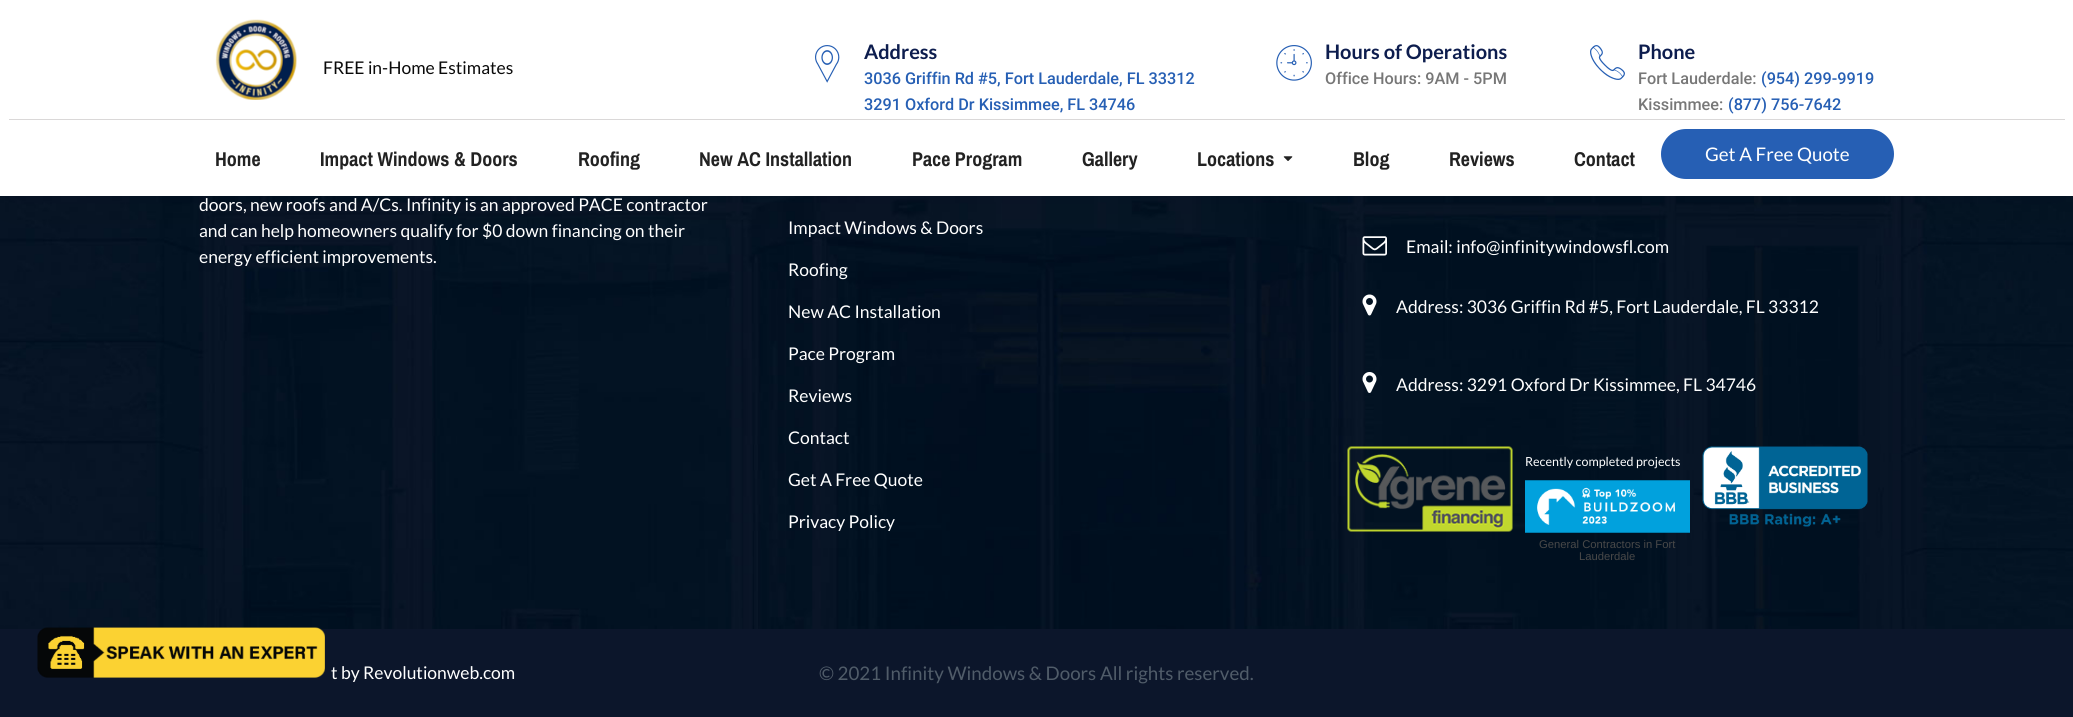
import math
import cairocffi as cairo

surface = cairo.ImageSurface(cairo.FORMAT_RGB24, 2073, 717)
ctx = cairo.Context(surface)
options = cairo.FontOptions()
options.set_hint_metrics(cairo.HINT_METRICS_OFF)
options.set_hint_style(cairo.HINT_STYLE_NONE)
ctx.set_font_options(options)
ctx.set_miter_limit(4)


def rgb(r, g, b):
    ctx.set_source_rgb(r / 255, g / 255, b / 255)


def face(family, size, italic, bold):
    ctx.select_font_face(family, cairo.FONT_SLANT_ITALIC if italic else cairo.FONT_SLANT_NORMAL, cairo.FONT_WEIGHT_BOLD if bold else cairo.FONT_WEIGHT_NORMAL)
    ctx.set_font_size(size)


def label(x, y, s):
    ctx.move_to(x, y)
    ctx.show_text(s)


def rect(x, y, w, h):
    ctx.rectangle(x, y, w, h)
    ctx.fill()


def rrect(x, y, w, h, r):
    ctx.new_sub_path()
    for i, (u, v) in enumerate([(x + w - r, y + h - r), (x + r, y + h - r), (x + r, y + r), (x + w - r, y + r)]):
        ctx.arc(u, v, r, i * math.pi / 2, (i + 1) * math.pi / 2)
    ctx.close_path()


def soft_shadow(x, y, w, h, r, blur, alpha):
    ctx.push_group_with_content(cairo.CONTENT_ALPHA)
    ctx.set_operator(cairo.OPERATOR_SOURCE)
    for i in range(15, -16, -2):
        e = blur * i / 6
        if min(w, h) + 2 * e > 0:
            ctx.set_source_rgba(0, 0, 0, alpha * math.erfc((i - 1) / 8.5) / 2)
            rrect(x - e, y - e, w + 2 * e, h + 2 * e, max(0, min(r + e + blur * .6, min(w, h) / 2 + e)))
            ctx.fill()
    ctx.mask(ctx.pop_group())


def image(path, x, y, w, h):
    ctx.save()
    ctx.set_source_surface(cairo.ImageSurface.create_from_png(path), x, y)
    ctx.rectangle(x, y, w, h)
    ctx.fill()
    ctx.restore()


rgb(255, 255, 255)
ctx.paint()
image('image5.png', 0, 196, 2073, 433)
image('image6.png', 1362, 236, 25, 20)
image('image7.png', 1362, 294, 15, 22)
rgb(0, 0, 0)
soft_shadow(0, 13, 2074, 196, 0, 31, 0.05)
rgb(255, 255, 255)
rect(0, 0, 2073, 196)
rgb(218, 216, 216)
rect(9, 119, 2056, 1)
image('image0.png', 215, 19, 82, 81)
face('Lato', 17.5, 0, 0)
rgb(10, 10, 10)
label(323, 74, 'FREE in-Home Estimates')
image('image1.png', 815, 45, 25, 38)
face('Lato', 20, 0, 1)
rgb(13, 29, 78)
label(864, 59, 'Address')
face('Roboto Medium', 16.25, 0, 0)
rgb(38, 95, 180)
label(864, 84, '3036 Griffin Rd #5, Fort Lauderdale, FL 33312')
label(864, 110, '3291 Oxford Dr Kissimmee, FL 34746')
image('image2.png', 1276, 45, 36, 36)
face('Lato', 20, 0, 1)
rgb(13, 29, 78)
label(1325, 59, 'Hours of Operations')
face('Roboto Medium', 16.25, 0, 0)
rgb(119, 119, 119)
label(1325, 84, 'Office Hours: 9AM - 5PM')
image('image3.png', 1590, 45, 35, 35)
face('Lato', 20, 0, 1)
rgb(13, 29, 78)
label(1638, 59, 'Phone')
face('Roboto Medium', 16.25, 0, 0)
rgb(119, 119, 119)
label(1638, 84, 'Fort Lauderdale:')
rgb(38, 95, 180)
label(1761, 84, '(954) 299-9919')
rgb(119, 119, 119)
label(1638, 110, 'Kissimmee:')
rgb(38, 95, 180)
label(1728, 110, '(877) 756-7642')
face('Archivo Narrow', 20, 0, 1)
rgb(34, 34, 34)
label(215, 166, 'Home')
label(320, 166, 'Impact Windows & Doors')
label(578, 166, 'Roofing')
label(699, 166, 'New AC Installation')
label(912, 166, 'Pace Program')
label(1082, 166, 'Gallery')
label(1197, 166, 'Locations')
image('image4.png', 1283, 156, 10, 5)
label(1353, 166, 'Blog')
label(1449, 166, 'Reviews')
label(1574, 166, 'Contact')
rgb(38, 95, 180)
rrect(1661, 129, 233, 50, 25)
ctx.fill()
face('Lato', 18.75, 0, 0)
rgb(255, 255, 255)
label(1705, 161, 'Get A Free Quote')
face('Lato', 17.5, 0, 0)
label(199, 211, 'doors, new roofs and A/Cs. Infinity is an approved PACE contractor')
label(199, 237, 'and can help homeowners qualify for $0 down financing on their')
label(199, 263, 'energy efficient improvements.')
label(788, 234, 'Impact Windows & Doors')
label(788, 276, 'Roofing')
label(788, 318, 'New AC Installation')
label(788, 360, 'Pace Program')
label(788, 402, 'Reviews')
label(788, 444, 'Contact')
label(788, 486, 'Get A Free Quote')
label(788, 528, 'Privacy Policy')
label(1406, 253, 'Email: info@infinitywindowsfl.com')
label(1396, 313, 'Address: 3036 Griffin Rd #5, Fort Lauderdale, FL 33312')
image('image8.png', 1362, 372, 15, 21)
label(1396, 391, 'Address: 3291 Oxford Dr Kissimmee, FL 34746')
image('image9.png', 1347, 446, 166, 86)
face('Lato', 12.5, 0, 0)
label(1525, 466, 'Recently completed projects')
image('image10.png', 1525, 480, 165, 53)
face('Liberation Sans', 11.25, 0, 0)
rgb(72, 72, 72)
label(1539, 548, 'General Contractors in Fort')
label(1579, 560, 'Lauderdale')
image('image11.png', 1702, 446, 166, 81)
rgb(12, 22, 43)
rect(0, 629, 2073, 88)
image('image12.png', 37, 627, 288, 51)
face('Lato', 17.5, 0, 0)
rgb(255, 255, 255)
label(331, 679, 't by Revolutionweb.com')
face('Lato', 18.75, 0, 0)
rgb(80, 92, 105)
label(819, 680, '© 2021 Infinity Windows & Doors All rights reserved.')
surface.write_to_png('render.png')
